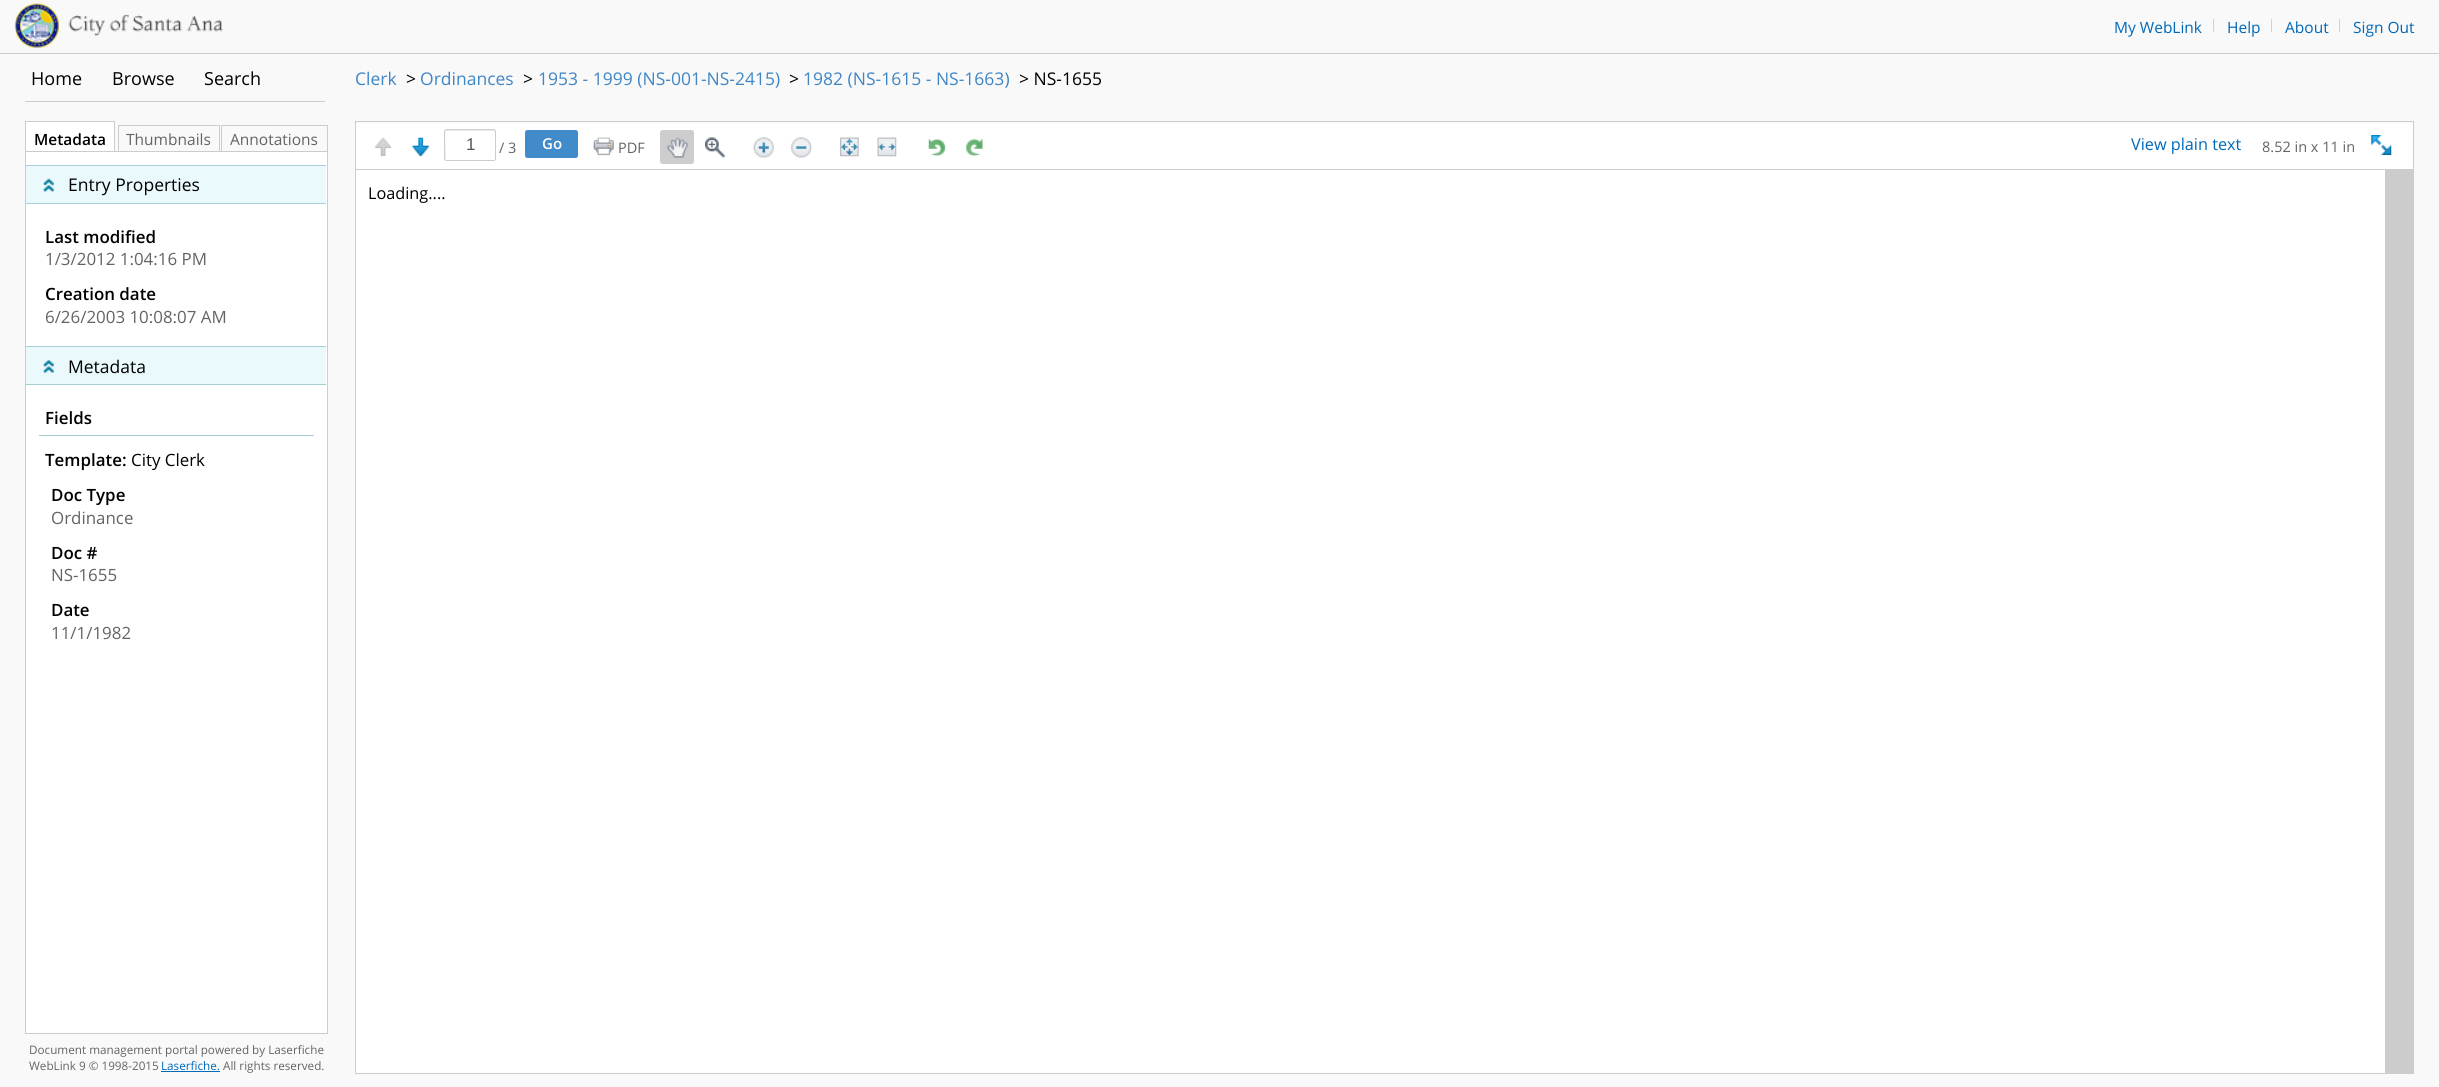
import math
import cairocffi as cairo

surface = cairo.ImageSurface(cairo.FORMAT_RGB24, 2439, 1087)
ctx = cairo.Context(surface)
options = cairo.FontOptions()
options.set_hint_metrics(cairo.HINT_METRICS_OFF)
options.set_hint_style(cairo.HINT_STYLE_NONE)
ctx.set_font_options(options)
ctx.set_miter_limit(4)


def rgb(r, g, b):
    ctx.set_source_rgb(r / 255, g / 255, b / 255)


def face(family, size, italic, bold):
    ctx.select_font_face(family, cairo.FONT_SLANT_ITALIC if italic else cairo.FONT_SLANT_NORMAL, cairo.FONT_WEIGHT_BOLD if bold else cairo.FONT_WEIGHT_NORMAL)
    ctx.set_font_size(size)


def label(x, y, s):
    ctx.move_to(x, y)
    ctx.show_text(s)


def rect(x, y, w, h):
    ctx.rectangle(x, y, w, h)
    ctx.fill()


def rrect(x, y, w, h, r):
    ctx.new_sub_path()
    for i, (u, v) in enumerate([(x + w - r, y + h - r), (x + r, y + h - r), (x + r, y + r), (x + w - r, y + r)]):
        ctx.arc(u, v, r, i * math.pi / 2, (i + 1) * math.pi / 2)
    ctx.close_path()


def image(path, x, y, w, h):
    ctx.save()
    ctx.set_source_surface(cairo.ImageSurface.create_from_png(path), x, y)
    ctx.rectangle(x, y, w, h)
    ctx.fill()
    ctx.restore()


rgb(249, 249, 249)
ctx.paint()
rgb(204, 204, 204)
rect(0, 53, 2439, 1)
image('image0.png', 14, 3, 209, 45)
face('Open Sans', 15.5, 0, 0)
rgb(0, 105, 186)
label(2114, 33, 'My WebLink')
face('Open Sans', 13, 0, 0)
rgb(204, 204, 204)
label(2210, 29, '|')
face('Open Sans', 15.5, 0, 0)
rgb(0, 105, 186)
label(2227, 33, 'Help')
face('Open Sans', 13, 0, 0)
rgb(204, 204, 204)
label(2268, 29, '|')
face('Open Sans', 15.5, 0, 0)
rgb(0, 105, 186)
label(2285, 33, 'About')
face('Open Sans', 13, 0, 0)
rgb(204, 204, 204)
label(2336, 29, '|')
face('Open Sans', 15.5, 0, 0)
rgb(0, 105, 186)
label(2353, 33, 'Sign Out')
rgb(204, 204, 204)
rect(25, 101, 300, 1)
face('Open Sans', 18, 0, 0)
rgb(0, 0, 0)
label(31, 85, 'Home')
label(112, 85, 'Browse')
label(204, 85, 'Search')
face('Open Sans', 17.5, 0, 0)
rgb(63, 134, 197)
label(355, 85, 'Clerk')
rgb(0, 0, 0)
label(406, 85, '>')
rgb(63, 134, 197)
label(420, 85, 'Ordinances')
rgb(0, 0, 0)
label(523, 85, '>')
rgb(63, 134, 197)
label(538, 85, '1953 - 1999 (NS-001-NS-2415)')
rgb(0, 0, 0)
label(789, 85, '>')
rgb(63, 134, 197)
label(803, 85, '1982 (NS-1615 - NS-1663)')
rgb(0, 0, 0)
label(1019, 85, '> NS-1655')
rgb(255, 255, 255)
rect(26, 122, 88, 29)
rgb(204, 204, 204)
rect(25, 121, 90, 1)
rect(114, 121, 1, 32)
rect(25, 121, 1, 32)
face('Open Sans SemiBold', 15.5, 0, 0)
rgb(0, 0, 0)
label(34, 145, 'Metadata')
ctx.rectangle(118.5, 125.5, 101, 27)
rgb(204, 204, 204)
ctx.set_line_width(1)
ctx.stroke()
face('Open Sans', 15.5, 0, 0)
rgb(100, 100, 100)
label(126, 145, 'Thumbnails')
ctx.rectangle(221.5, 125.5, 106, 27)
rgb(204, 204, 204)
ctx.stroke()
rgb(100, 100, 100)
label(230, 145, 'Annotations')
rgb(255, 255, 255)
ctx.rectangle(25.5, 151.5, 302, 882)
ctx.fill_preserve()
rgb(204, 204, 204)
ctx.stroke()
rgb(233, 249, 252)
rect(26, 166, 300, 37)
rgb(167, 206, 213)
rect(26, 165, 300, 1)
rect(26, 203, 300, 1)
image('image1.png', 43, 178, 11, 14)
face('Open Sans', 17.5, 0, 0)
rgb(0, 0, 0)
label(68, 191, 'Entry Properties')
face('Open Sans SemiBold', 16.9, 0, 0)
label(45, 243, 'Last modified')
face('Open Sans', 16.9, 0, 0)
rgb(100, 100, 100)
label(45, 265, '1/3/2012 1:04:16 PM')
face('Open Sans SemiBold', 16.9, 0, 0)
rgb(0, 0, 0)
label(45, 300, 'Creation date')
face('Open Sans', 16.9, 0, 0)
rgb(100, 100, 100)
label(45, 323, '6/26/2003 10:08:07 AM')
rgb(233, 249, 252)
rect(26, 347, 300, 37)
rgb(167, 206, 213)
rect(26, 346, 300, 1)
rect(26, 384, 300, 1)
image('image2.png', 43, 359, 11, 14)
face('Open Sans', 17.5, 0, 0)
rgb(0, 0, 0)
label(68, 373, 'Metadata')
rgb(167, 206, 213)
rect(39, 435, 275, 1)
face('Open Sans SemiBold', 16.9, 0, 0)
rgb(0, 0, 0)
label(45, 424, 'Fields')
label(45, 466, 'Template:')
face('Open Sans', 16.9, 0, 0)
label(131, 466, 'City Clerk')
face('Open Sans SemiBold', 16.9, 0, 0)
label(51, 501, 'Doc Type')
face('Open Sans', 16.9, 0, 0)
rgb(100, 100, 100)
label(51, 524, 'Ordinance')
face('Open Sans SemiBold', 16.9, 0, 0)
rgb(0, 0, 0)
label(51, 559, 'Doc #')
face('Open Sans', 16.9, 0, 0)
rgb(100, 100, 100)
label(51, 581, 'NS-1655')
face('Open Sans SemiBold', 16.9, 0, 0)
rgb(0, 0, 0)
label(51, 616, 'Date')
face('Open Sans', 16.9, 0, 0)
rgb(100, 100, 100)
label(51, 639, '11/1/1982')
face('Open Sans', 11.7, 0, 0)
label(29, 1054, 'Document management portal powered by Laserfiche')
label(29, 1070, 'WebLink 9 © 1998-2015')
rgb(0, 105, 186)
label(161, 1070, 'Laserfiche.')
rect(161, 1071, 59, 1)
rgb(100, 100, 100)
label(223, 1070, 'All rights reserved.')
rgb(255, 255, 255)
rect(356, 123, 2057, 46)
rgb(204, 204, 204)
rect(355, 121, 2059, 1)
rect(2413, 121, 1, 48)
rect(355, 121, 1, 48)
image('image3.png', 374, 137, 18, 20)
image('image4.png', 412, 137, 17, 20)
rgb(236, 236, 236)
ctx.new_path()
ctx.move_to(446, 131)
ctx.line_to(493, 131)
ctx.curve_to(495, 131, 495, 133, 495, 134)
ctx.curve_to(495, 128, 494, 130, 486, 130)
ctx.line_to(462, 130)
ctx.curve_to(441, 130, 445, 125, 445, 145)
ctx.curve_to(445, 147, 444, 159, 446, 160)
ctx.line_to(445, 132)
ctx.close_path()
ctx.fill()
rrect(444.5, 129.5, 51, 31, 2)
rgb(204, 204, 204)
ctx.stroke()
face('Liberation Sans', 17, 0, 0)
rgb(85, 85, 85)
label(466, 150, '1')
face('Open Sans', 14.5, 0, 0)
rgb(100, 100, 100)
label(499, 153, '/ 3')
rgb(66, 139, 202)
rrect(525, 130, 53, 28, 2.5)
ctx.fill()
face('Open Sans SemiBold', 15, 0, 0)
rgb(255, 255, 255)
label(542, 149, 'Go')
image('image5.png', 593, 137, 21, 19)
face('Open Sans', 14.5, 0, 0)
rgb(100, 100, 100)
label(618, 153, 'PDF')
rgb(205, 205, 205)
rrect(660, 130, 34, 34, 2.5)
ctx.fill()
image('image6.png', 667, 137, 21, 21)
image('image7.png', 705, 137, 20, 21)
image('image8.png', 753, 137, 21, 21)
image('image9.png', 791, 137, 21, 21)
image('image10.png', 840, 137, 19, 20)
image('image11.png', 877, 137, 20, 20)
image('image12.png', 928, 138, 18, 19)
image('image13.png', 965, 138, 18, 19)
face('Open Sans', 16.25, 0, 0)
rgb(0, 105, 186)
label(2131, 150, 'View plain text')
face('Open Sans', 14.5, 0, 0)
rgb(100, 100, 100)
label(2262, 152, '8.52 in x 11 in')
image('image14.png', 2371, 135, 21, 20)
ctx.rectangle(355.5, 169.5, 2058, 904)
rgb(204, 204, 204)
ctx.stroke()
rect(2385, 170, 28, 903)
rgb(255, 255, 255)
rect(356, 170, 2029, 903)
face('Open Sans', 16.25, 0, 0)
rgb(0, 0, 0)
label(368, 199, 'Loading....')
surface.write_to_png('render.png')
